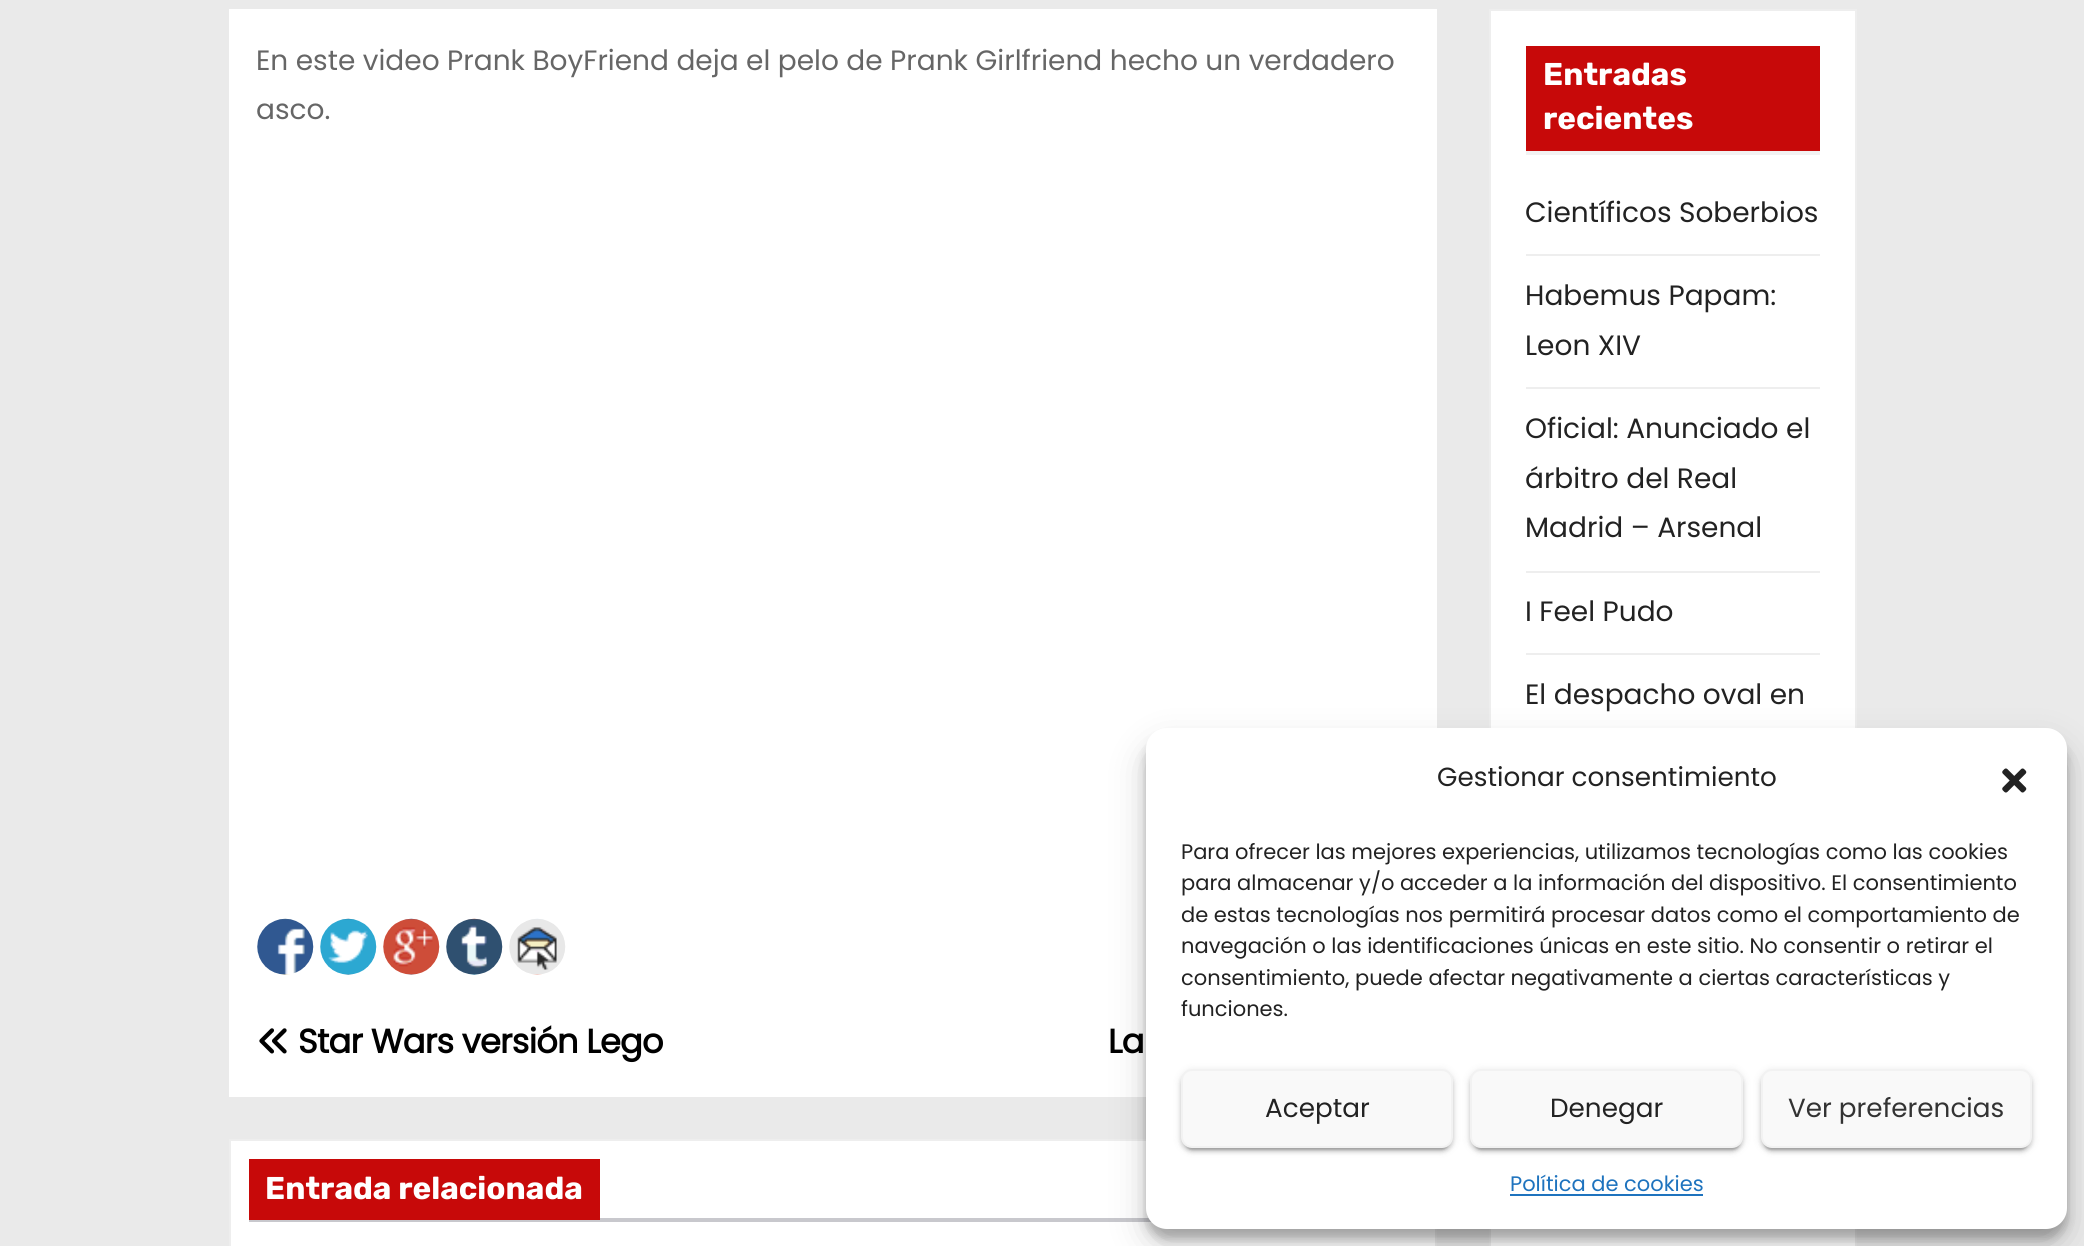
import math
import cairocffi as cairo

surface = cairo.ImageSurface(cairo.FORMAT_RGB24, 2084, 1246)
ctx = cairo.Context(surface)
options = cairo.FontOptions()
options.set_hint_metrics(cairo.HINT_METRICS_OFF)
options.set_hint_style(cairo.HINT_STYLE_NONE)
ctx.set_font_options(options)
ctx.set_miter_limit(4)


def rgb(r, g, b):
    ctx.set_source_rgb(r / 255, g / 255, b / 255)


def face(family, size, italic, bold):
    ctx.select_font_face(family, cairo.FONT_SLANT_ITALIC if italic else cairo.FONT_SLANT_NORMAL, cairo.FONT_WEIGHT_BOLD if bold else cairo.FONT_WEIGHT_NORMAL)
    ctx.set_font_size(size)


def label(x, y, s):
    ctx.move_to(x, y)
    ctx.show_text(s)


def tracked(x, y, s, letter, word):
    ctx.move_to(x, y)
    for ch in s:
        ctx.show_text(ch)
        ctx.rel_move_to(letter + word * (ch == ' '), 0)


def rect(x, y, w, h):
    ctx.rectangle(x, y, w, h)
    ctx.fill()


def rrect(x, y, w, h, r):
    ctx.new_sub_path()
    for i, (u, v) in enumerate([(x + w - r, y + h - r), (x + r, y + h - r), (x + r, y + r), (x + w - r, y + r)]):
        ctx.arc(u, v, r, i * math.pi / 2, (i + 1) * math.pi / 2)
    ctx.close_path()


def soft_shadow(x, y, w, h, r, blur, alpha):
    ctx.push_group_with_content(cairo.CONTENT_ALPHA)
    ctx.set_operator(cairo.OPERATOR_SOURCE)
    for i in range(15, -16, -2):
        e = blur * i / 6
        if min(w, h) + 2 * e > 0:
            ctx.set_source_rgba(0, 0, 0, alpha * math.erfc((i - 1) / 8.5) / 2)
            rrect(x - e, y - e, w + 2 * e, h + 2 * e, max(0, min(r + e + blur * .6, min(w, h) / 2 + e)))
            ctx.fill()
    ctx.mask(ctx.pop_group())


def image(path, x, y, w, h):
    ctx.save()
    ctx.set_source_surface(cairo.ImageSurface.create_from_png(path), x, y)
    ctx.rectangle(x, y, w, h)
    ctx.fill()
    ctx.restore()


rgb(234, 234, 234)
ctx.paint()
rgb(255, 255, 255)
rect(229, 9, 1208, 1088)
face('Poppins', 28, 0, 0)
rgb(102, 102, 102)
label(256, 70, 'En este video Prank BoyFriend deja el pelo de Prank Girlfriend hecho un verdadero')
label(256, 119, 'asco.')
image('image0.png', 257, 918, 57, 57)
image('image1.png', 320, 918, 57, 57)
image('image2.png', 383, 918, 57, 57)
image('image3.png', 446, 918, 57, 57)
image('image4.png', 509, 918, 57, 57)
image('image5.png', 259, 1028, 28, 26)
face('Poppins', 33.6, 0, 1)
rgb(0, 0, 0)
tracked(298, 1053, 'Star Wars versión Lego', -0.7, 0)
tracked(1108, 1053, 'La', -0.7, 0)
rgb(255, 255, 255)
ctx.rectangle(230, 1140, 1206, 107)
ctx.fill_preserve()
rgb(238, 238, 238)
ctx.stroke()
rgb(200, 200, 205)
rect(249, 1218, 903, 4)
rgb(199, 9, 9)
rect(249, 1159, 351, 61)
face('Rubik', 31.5, 0, 1)
rgb(255, 255, 255)
label(265, 1199, 'Entrada relacionada')
ctx.rectangle(1490, 10, 366, 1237)
ctx.fill_preserve()
rgb(238, 238, 238)
ctx.stroke()
rgb(242, 242, 242)
rect(1526, 151, 294, 4)
rgb(199, 9, 9)
rect(1526, 46, 294, 105)
rgb(255, 255, 255)
label(1543, 85, 'Entradas')
label(1543, 129, 'recientes')
rgb(238, 238, 238)
rect(1526, 254, 294, 2)
face('Poppins', 28, 0, 0)
rgb(34, 34, 34)
label(1525, 222, 'Científicos Soberbios')
rgb(238, 238, 238)
rect(1526, 387, 294, 2)
rgb(34, 34, 34)
label(1525, 305, 'Habemus Papam:')
label(1525, 355, 'Leon XIV')
rgb(238, 238, 238)
rect(1526, 571, 294, 2)
rgb(34, 34, 34)
label(1525, 438, 'Oficial: Anunciado el')
label(1525, 488, 'árbitro del Real')
label(1525, 537, 'Madrid – Arsenal')
rgb(238, 238, 238)
rect(1526, 653, 294, 2)
rgb(34, 34, 34)
label(1525, 621, 'I Feel Pudo')
label(1525, 704, 'El despacho oval en')
rgb(0, 0, 0)
soft_shadow(1146, 739, 921, 500, 21, 5, 0.23)
soft_shadow(1146, 746, 921, 500, 21, 17.5, 0.19)
rgb(255, 255, 255)
rrect(1146, 728, 921, 501, 21)
ctx.fill()
face('Poppins', 26.25, 0, 0)
rgb(34, 34, 34)
label(1437, 786, 'Gestionar consentimiento')
image('image6.png', 2002, 768, 25, 25)
face('Poppins', 21, 0, 0)
label(1181, 859, 'Para ofrecer las mejores experiencias, utilizamos tecnologías como las cookies')
label(1181, 890, 'para almacenar y/o acceder a la información del dispositivo. El consentimiento')
label(1181, 922, 'de estas tecnologías nos permitirá procesar datos como el comportamiento de')
label(1181, 953, 'navegación o las identificaciones únicas en este sitio. No consentir o retirar el')
label(1181, 985, 'consentimiento, puede afectar negativamente a ciertas características y')
label(1181, 1016, 'funciones.')
rgb(0, 0, 0)
soft_shadow(1181, 1071, 272, 79, 11, 4.5, 0.12)
soft_shadow(1185, 1078, 264, 72, 7, 1, 0.2)
soft_shadow(1181, 1073, 272, 79, 11, 2, 0.14)
rgb(249, 249, 249)
rrect(1182, 1070, 270, 77, 10)
ctx.fill_preserve()
rgb(242, 242, 242)
ctx.stroke()
face('Poppins', 26.25, 0, 0)
rgb(34, 34, 34)
label(1265, 1117, 'Aceptar')
rgb(0, 0, 0)
soft_shadow(1470, 1071, 273, 79, 11, 4.5, 0.12)
soft_shadow(1474, 1078, 266, 72, 7, 1, 0.2)
soft_shadow(1470, 1073, 273, 79, 11, 2, 0.14)
rgb(249, 249, 249)
rrect(1471, 1070, 271, 77, 10)
ctx.fill_preserve()
rgb(242, 242, 242)
ctx.stroke()
rgb(34, 34, 34)
label(1550, 1117, 'Denegar')
rgb(0, 0, 0)
soft_shadow(1761, 1071, 271, 79, 11, 4.5, 0.12)
soft_shadow(1764, 1078, 264, 72, 7, 1, 0.2)
soft_shadow(1761, 1073, 271, 79, 11, 2, 0.14)
rgb(249, 249, 249)
rrect(1762, 1070, 269, 77, 10)
ctx.fill_preserve()
rgb(242, 242, 242)
ctx.stroke()
rgb(51, 51, 51)
label(1788, 1117, 'Ver preferencias')
face('Poppins', 21, 0, 0)
rgb(30, 115, 190)
label(1510, 1191, 'Política de cookies')
rect(1510, 1194, 193, 2)
surface.write_to_png('render.png')
